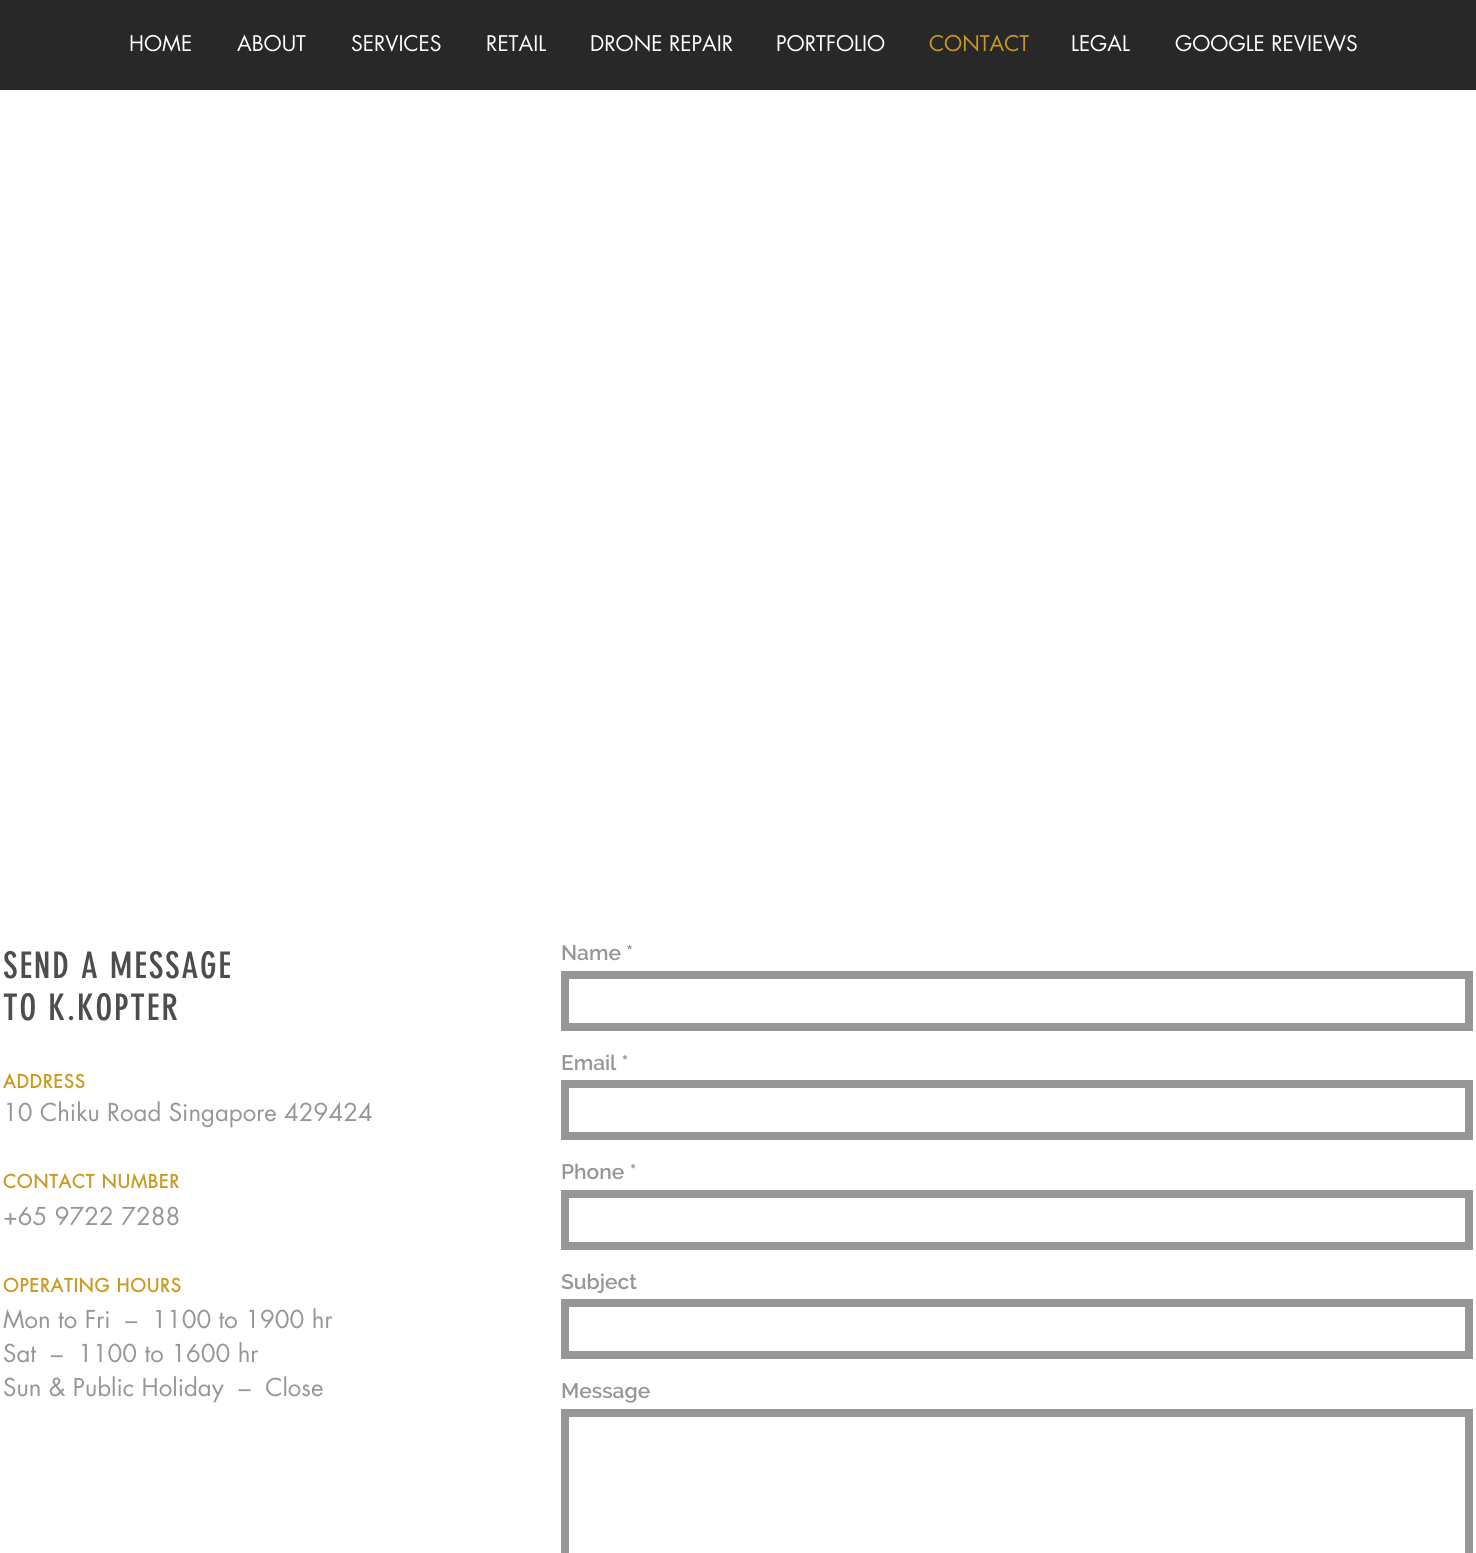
import math
import cairocffi as cairo

surface = cairo.ImageSurface(cairo.FORMAT_RGB24, 1476, 1553)
ctx = cairo.Context(surface)
options = cairo.FontOptions()
options.set_hint_metrics(cairo.HINT_METRICS_OFF)
options.set_hint_style(cairo.HINT_STYLE_NONE)
ctx.set_font_options(options)
ctx.set_miter_limit(4)


def rgb(r, g, b):
    ctx.set_source_rgb(r / 255, g / 255, b / 255)


def face(family, size, italic, bold):
    ctx.select_font_face(family, cairo.FONT_SLANT_ITALIC if italic else cairo.FONT_SLANT_NORMAL, cairo.FONT_WEIGHT_BOLD if bold else cairo.FONT_WEIGHT_NORMAL)
    ctx.set_font_size(size)


def label(x, y, s):
    ctx.move_to(x, y)
    ctx.show_text(s)


def tracked(x, y, s, letter, word):
    ctx.move_to(x, y)
    for ch in s:
        ctx.show_text(ch)
        ctx.rel_move_to(letter + word * (ch == ' '), 0)


def rect(x, y, w, h):
    ctx.rectangle(x, y, w, h)
    ctx.fill()


rgb(255, 255, 255)
ctx.paint()
rgb(40, 40, 40)
rect(0, 0, 1476, 90)
face('futura', 21, 0, 0)
rgb(255, 255, 255)
label(129, 51, 'HOME')
label(237, 51, 'ABOUT')
label(351, 51, 'SERVICES')
label(486, 51, 'RETAIL')
label(590, 51, 'DRONE REPAIR')
label(776, 51, 'PORTFOLIO')
rgb(201, 154, 34)
label(929, 51, 'CONTACT')
rgb(255, 255, 255)
label(1071, 51, 'LEGAL')
label(1175, 51, 'GOOGLE REVIEWS')
face('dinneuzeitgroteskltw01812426', 36, 0, 0)
rgb(77, 77, 77)
tracked(3, 978, 'SEND A MESSAGE', 1.75, 0)
tracked(3, 1020, 'TO K.KOPTER', 1.75, 0)
face('Raleway SemiBold', 21, 0, 0)
rgb(150, 150, 150)
label(561, 960, 'Name *')
ctx.rectangle(565, 975, 904, 52)
ctx.set_line_width(8)
ctx.stroke()
label(561, 1070, 'Email *')
ctx.rectangle(565, 1084, 904, 52)
ctx.stroke()
label(561, 1179, 'Phone *')
ctx.rectangle(565, 1194, 904, 52)
ctx.stroke()
label(561, 1289, 'Subject')
ctx.rectangle(565, 1303, 904, 52)
ctx.stroke()
label(561, 1398, 'Message')
ctx.rectangle(565, 1413, 904, 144)
ctx.stroke()
face('futura', 18, 0, 1)
rgb(201, 154, 34)
tracked(3, 1088, 'ADDRESS', 0.9, 0)
face('futura', 24, 0, 0)
rgb(150, 150, 150)
label(3, 1121, '10 Chiku Road Singapore 429424')
face('futura', 18, 0, 1)
rgb(201, 154, 34)
tracked(3, 1188, 'CONTACT NUMBER', 0.9, 0)
face('futura', 24, 0, 0)
rgb(150, 150, 150)
label(3, 1225, '+65 9722 7288')
face('futura', 18, 0, 1)
rgb(201, 154, 34)
tracked(3, 1292, 'OPERATING HOURS', 0.9, 0)
face('futura', 24, 0, 0)
rgb(150, 150, 150)
label(3, 1328, 'Mon to Fri  –  1100 to 1900 hr')
label(3, 1362, 'Sat  –')
label(78, 1362, '1100 to 1600 hr')
label(3, 1396, 'Sun & Public Holiday  –  Close')
surface.write_to_png('render.png')
